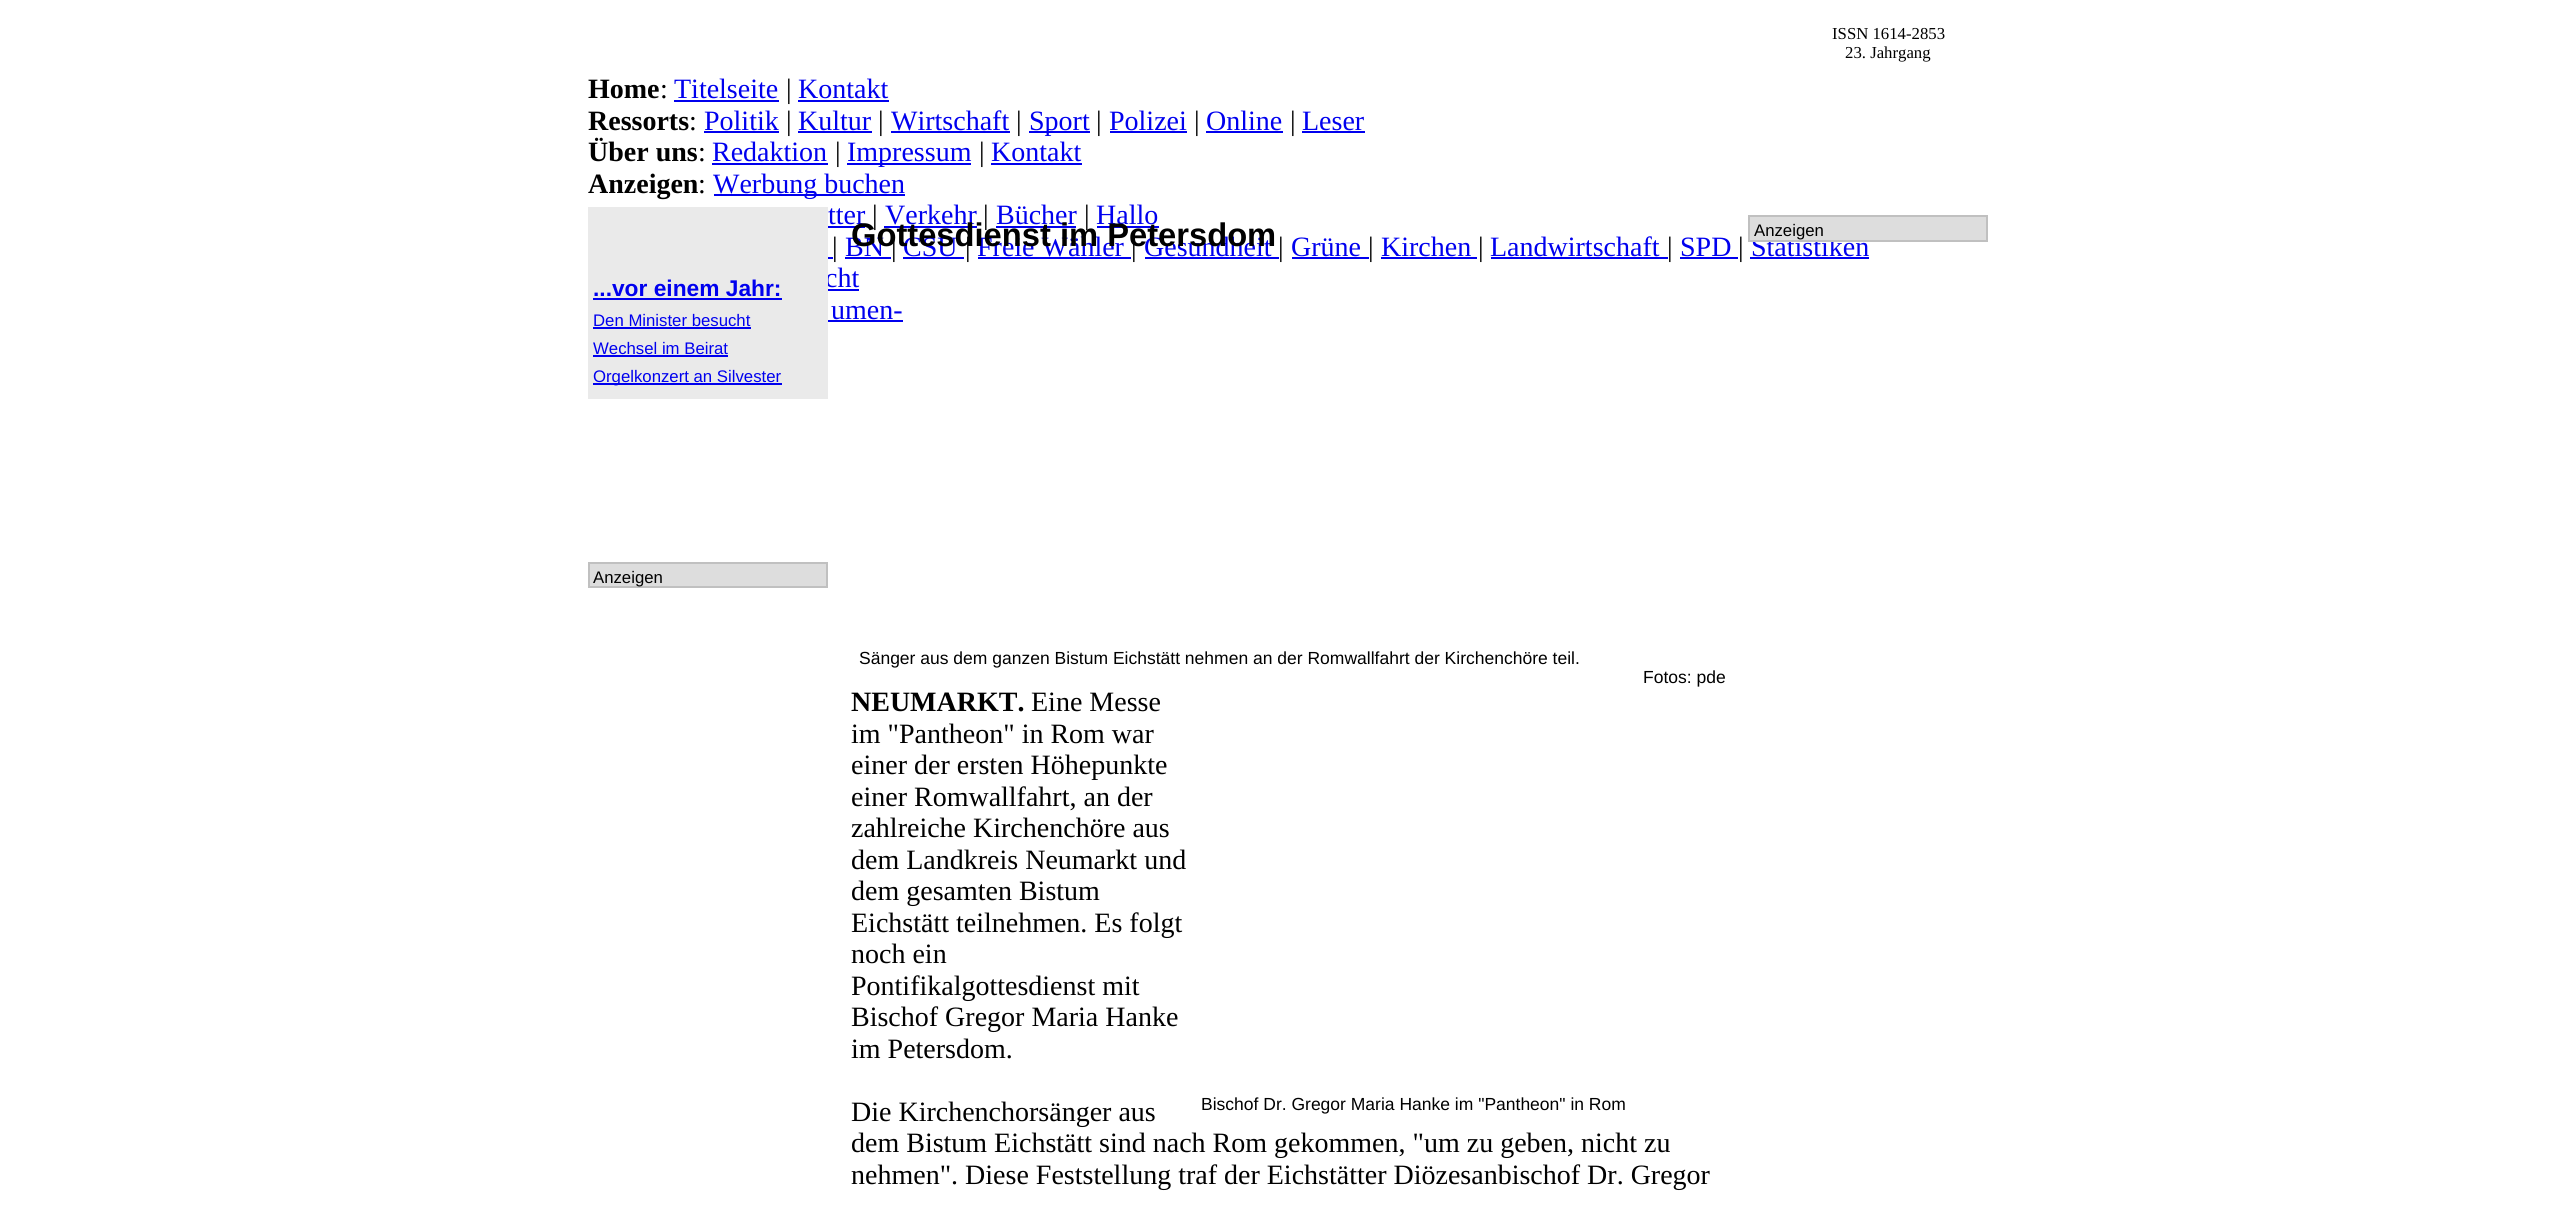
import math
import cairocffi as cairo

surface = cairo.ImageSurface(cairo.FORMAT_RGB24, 2575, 1205)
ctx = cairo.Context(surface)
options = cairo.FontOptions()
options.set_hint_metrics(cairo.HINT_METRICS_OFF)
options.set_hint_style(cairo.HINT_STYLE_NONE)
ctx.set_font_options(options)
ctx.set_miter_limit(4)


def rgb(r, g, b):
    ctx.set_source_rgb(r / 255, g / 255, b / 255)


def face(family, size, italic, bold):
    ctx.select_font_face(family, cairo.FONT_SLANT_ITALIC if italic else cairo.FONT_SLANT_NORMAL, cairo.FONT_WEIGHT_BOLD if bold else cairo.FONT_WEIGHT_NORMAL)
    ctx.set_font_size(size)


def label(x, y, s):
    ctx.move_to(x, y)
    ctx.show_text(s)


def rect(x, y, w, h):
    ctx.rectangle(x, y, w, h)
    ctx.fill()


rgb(255, 255, 255)
ctx.paint()
face('Liberation Serif', 16.75, 0, 0)
rgb(0, 0, 0)
label(1832, 39, 'ISSN 1614-2853')
label(1845, 58, '23. Jahrgang')
face('Liberation Serif', 28, 0, 1)
label(588, 98, 'Home')
face('Liberation Serif', 28, 0, 0)
label(660, 98, ':')
rgb(0, 0, 238)
label(674, 98, 'Titelseite')
rect(674, 100, 105, 2)
rgb(0, 0, 0)
label(786, 98, '|')
rgb(0, 0, 238)
label(798, 98, 'Kontakt')
rect(798, 100, 91, 2)
face('Liberation Serif', 28, 0, 1)
rgb(0, 0, 0)
label(588, 130, 'Ressorts')
face('Liberation Serif', 28, 0, 0)
label(689, 130, ':')
rgb(0, 0, 238)
label(704, 130, 'Politik')
rect(704, 131, 75, 2)
rgb(0, 0, 0)
label(786, 130, '|')
rgb(0, 0, 238)
label(798, 130, 'Kultur')
rect(798, 131, 74, 2)
rgb(0, 0, 0)
label(878, 130, '|')
rgb(0, 0, 238)
label(891, 130, 'Wirtschaft')
rect(891, 131, 119, 2)
rgb(0, 0, 0)
label(1016, 130, '|')
rgb(0, 0, 238)
rect(1029, 131, 61, 2)
label(1029, 130, 'Sport')
rgb(0, 0, 0)
label(1096, 130, '|')
rgb(0, 0, 238)
label(1109, 130, 'Polizei')
rect(1110, 131, 77, 2)
rgb(0, 0, 0)
label(1194, 130, '|')
rgb(0, 0, 238)
label(1206, 130, 'Online')
rect(1206, 131, 77, 2)
rgb(0, 0, 0)
label(1290, 130, '|')
rgb(0, 0, 238)
label(1302, 130, 'Leser')
rect(1302, 131, 63, 2)
face('Liberation Serif', 28, 0, 1)
rgb(0, 0, 0)
label(588, 161, 'Über uns')
face('Liberation Serif', 28, 0, 0)
label(698, 161, ':')
rgb(0, 0, 238)
label(712, 161, 'Redaktion')
rect(712, 163, 116, 2)
rgb(0, 0, 0)
label(835, 161, '|')
rgb(0, 0, 238)
rect(847, 163, 124, 2)
label(847, 161, 'Impressum')
rgb(0, 0, 0)
label(979, 161, '|')
rgb(0, 0, 238)
label(991, 161, 'Kontakt')
rect(991, 163, 91, 2)
face('Liberation Serif', 28, 0, 1)
rgb(0, 0, 0)
label(588, 193, 'Anzeigen')
face('Liberation Serif', 28, 0, 0)
label(698, 193, ':')
rgb(0, 0, 238)
rect(714, 194, 191, 2)
label(713, 193, 'Werbung buchen')
label(828, 224, 'tter')
rect(828, 226, 37, 2)
rgb(0, 0, 0)
label(872, 224, '|')
rgb(0, 0, 238)
label(885, 224, 'Verkehr')
rect(884, 226, 93, 2)
rgb(0, 0, 0)
label(983, 224, '|')
rgb(0, 0, 238)
label(996, 224, 'Bücher')
rect(996, 226, 80, 2)
rgb(0, 0, 0)
label(1084, 224, '|')
rgb(0, 0, 238)
label(1096, 224, 'Hallo')
rect(1097, 226, 62, 2)
rgb(0, 0, 0)
label(832, 256, '|')
rgb(0, 0, 238)
label(845, 256, 'BN')
rect(845, 257, 46, 2)
rgb(0, 0, 0)
label(891, 256, '|')
rgb(0, 0, 238)
label(903, 256, 'CSU')
rect(903, 257, 61, 2)
rgb(0, 0, 0)
label(965, 256, '|')
rgb(0, 0, 238)
label(977, 256, 'Freie Wähler')
rect(978, 257, 153, 2)
rgb(0, 0, 0)
label(1131, 256, '|')
rgb(0, 0, 238)
label(1144, 256, 'Gesundheit')
rect(1145, 257, 134, 2)
rgb(0, 0, 0)
label(1278, 256, '|')
rgb(0, 0, 238)
label(1291, 256, 'Grüne')
rect(1292, 257, 77, 2)
rgb(0, 0, 0)
label(1368, 256, '|')
rgb(0, 0, 238)
label(1381, 256, 'Kirchen')
rect(1381, 257, 96, 2)
rgb(0, 0, 0)
label(1478, 256, '|')
rgb(0, 0, 238)
label(1490, 256, 'Landwirtschaft')
rect(1491, 257, 177, 2)
rgb(0, 0, 0)
label(1667, 256, '|')
rgb(0, 0, 238)
label(1680, 256, 'SPD')
rect(1680, 257, 58, 2)
rgb(0, 0, 0)
label(1738, 256, '|')
rgb(0, 0, 238)
label(1751, 256, 'Statistiken')
rect(1750, 257, 119, 2)
rect(828, 257, 5, 2)
label(825, 287, 'cht')
rect(828, 289, 31, 2)
label(831, 319, 'umen-')
rect(828, 320, 75, 2)
face('Liberation Sans', 32.7, 0, 1)
rgb(0, 0, 0)
label(851, 246, 'Gottesdienst im Petersdom')
face('Liberation Sans', 17.5, 0, 0)
label(859, 664, 'Sänger aus dem ganzen Bistum Eichstätt nehmen an der Romwallfahrt der Kirchenchöre teil.')
label(1643, 683, 'Fotos: pde')
face('Liberation Serif', 28, 0, 1)
label(851, 711, 'NEUMARKT.')
face('Liberation Serif', 28, 0, 0)
label(1031, 711, 'Eine Messe')
label(851, 743, 'im "Pantheon" in Rom war')
label(851, 774, 'einer der ersten Höhepunkte')
label(851, 806, 'einer Romwallfahrt, an der')
label(851, 837, 'zahlreiche Kirchenchöre aus')
label(851, 869, 'dem Landkreis Neumarkt und')
label(851, 900, 'dem gesamten Bistum')
label(851, 932, 'Eichstätt teilnehmen. Es folgt')
label(851, 963, 'noch ein')
label(851, 995, 'Pontifikalgottesdienst mit')
label(851, 1026, 'Bischof Gregor Maria Hanke')
label(851, 1058, 'im Petersdom.')
label(851, 1121, 'Die Kirchenchorsänger aus')
face('Liberation Sans', 17.5, 0, 0)
label(1201, 1110, 'Bischof Dr. Gregor Maria Hanke im "Pantheon" in Rom')
face('Liberation Serif', 28, 0, 0)
label(851, 1152, 'dem Bistum Eichstätt sind nach Rom gekommen, "um zu geben, nicht zu')
label(851, 1184, 'nehmen". Diese Feststellung traf der Eichstätter Diözesanbischof Dr. Gregor')
rgb(221, 221, 221)
ctx.rectangle(1749, 216, 238, 25)
ctx.fill_preserve()
rgb(192, 192, 192)
ctx.stroke()
face('Liberation Sans', 16.75, 0, 0)
rgb(0, 0, 0)
label(1754, 236, 'Anzeigen')
rgb(234, 234, 234)
rect(588, 207, 240, 192)
face('Liberation Sans', 22.75, 0, 1)
rgb(0, 0, 238)
label(593, 296, '...vor einem Jahr:')
rect(593, 298, 189, 2)
face('Liberation Sans', 16.75, 0, 0)
label(593, 326, 'Den Minister besucht')
rect(593, 327, 158, 2)
label(593, 354, 'Wechsel im Beirat')
rect(593, 355, 135, 2)
rect(593, 383, 189, 2)
label(593, 382, 'Orgelkonzert an Silvester')
rgb(221, 221, 221)
ctx.rectangle(589, 563, 238, 24)
ctx.fill_preserve()
rgb(192, 192, 192)
ctx.stroke()
rgb(0, 0, 0)
label(593, 583, 'Anzeigen')
surface.write_to_png('render.png')
